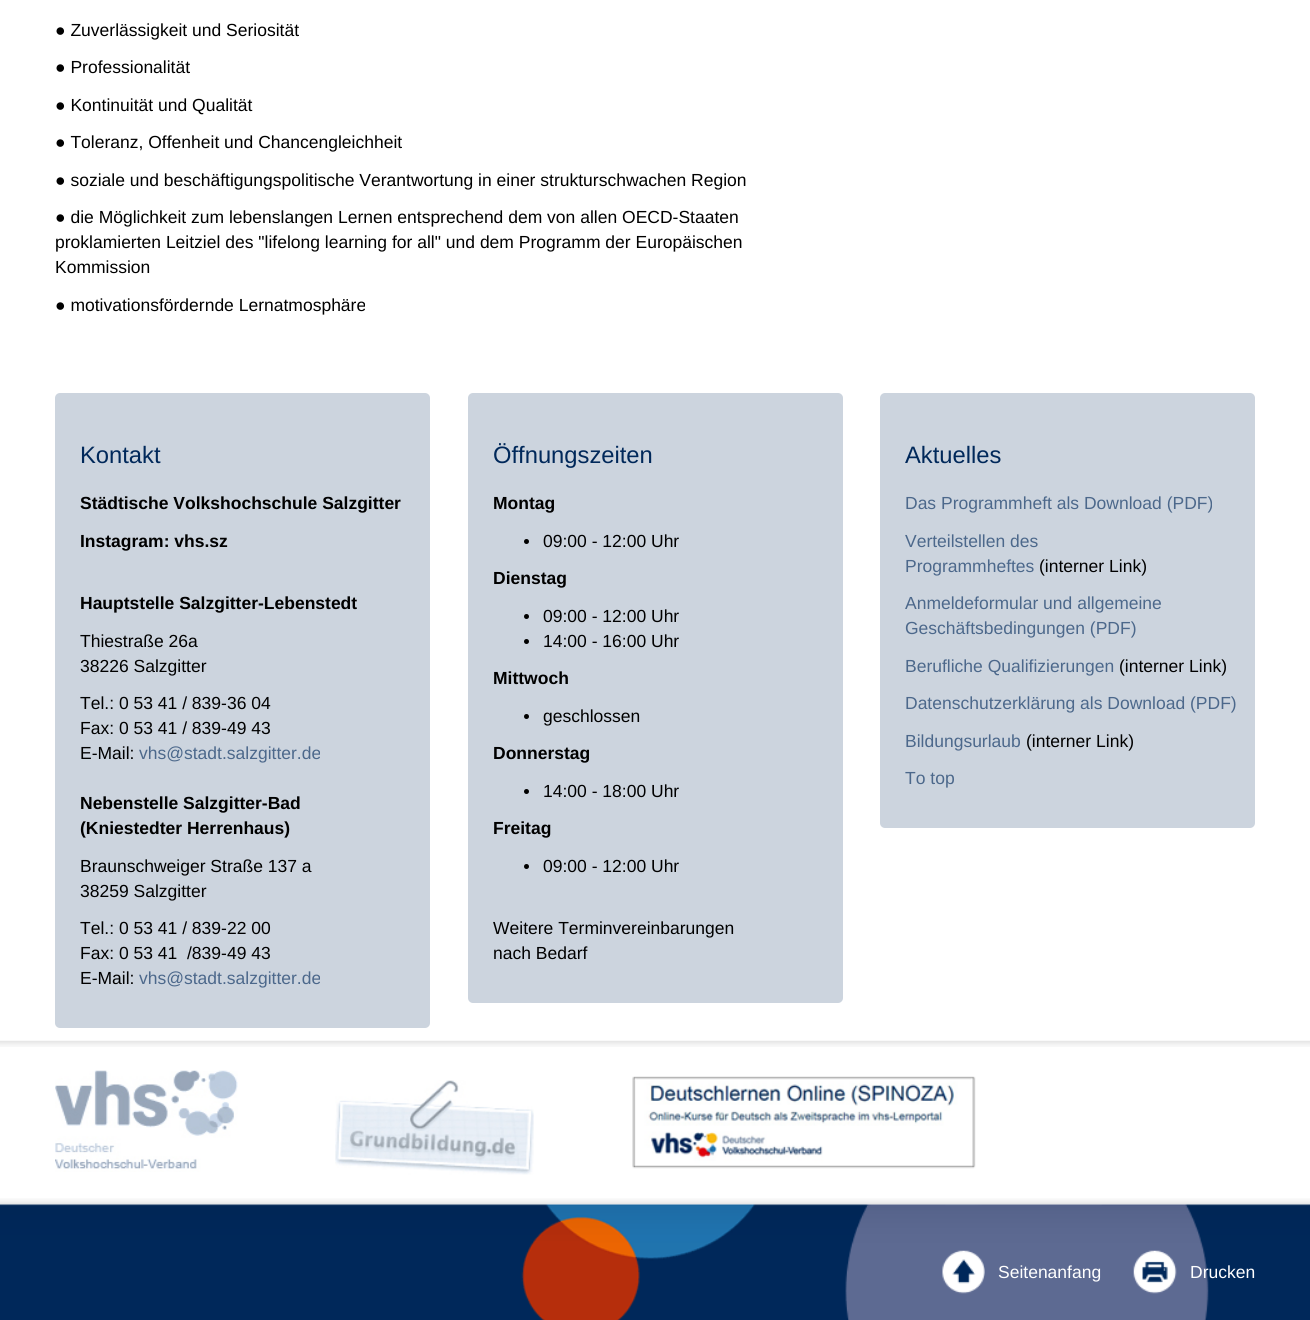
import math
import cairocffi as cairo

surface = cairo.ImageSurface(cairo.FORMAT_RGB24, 1310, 1320)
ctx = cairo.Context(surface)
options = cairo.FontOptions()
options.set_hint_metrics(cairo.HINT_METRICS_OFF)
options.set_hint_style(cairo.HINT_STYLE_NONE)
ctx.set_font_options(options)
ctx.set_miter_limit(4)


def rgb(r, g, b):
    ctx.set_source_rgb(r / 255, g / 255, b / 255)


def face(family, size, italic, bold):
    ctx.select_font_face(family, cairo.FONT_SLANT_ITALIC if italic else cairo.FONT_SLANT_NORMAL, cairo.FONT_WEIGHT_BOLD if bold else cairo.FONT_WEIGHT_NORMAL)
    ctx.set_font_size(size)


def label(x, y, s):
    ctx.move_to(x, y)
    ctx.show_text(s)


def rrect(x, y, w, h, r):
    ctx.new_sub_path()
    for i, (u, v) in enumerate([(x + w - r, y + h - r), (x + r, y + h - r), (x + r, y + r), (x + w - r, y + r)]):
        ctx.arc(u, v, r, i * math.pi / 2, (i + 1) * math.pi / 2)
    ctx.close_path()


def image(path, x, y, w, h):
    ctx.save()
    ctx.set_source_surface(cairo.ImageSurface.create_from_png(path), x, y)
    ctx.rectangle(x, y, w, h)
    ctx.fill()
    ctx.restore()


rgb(255, 255, 255)
ctx.paint()
face('Liberation Sans', 17.5, 0, 0)
rgb(0, 0, 0)
label(55, 36, '● Zuverlässigkeit und Seriosität')
label(55, 73, '● Professionalität')
label(55, 111, '● Kontinuität und Qualität')
label(55, 148, '● Toleranz, Offenheit und Chancengleichheit')
label(55, 186, '● soziale und beschäftigungspolitische Verantwortung in einer strukturschwachen Region')
label(55, 223, '● die Möglichkeit zum lebenslangen Lernen entsprechend dem von allen OECD-Staaten')
label(55, 248, 'proklamierten Leitziel des "lifelong learning for all" und dem Programm der Europäischen')
label(55, 273, 'Kommission')
label(55, 311, '● motivationsfördernde Lernatmosphäre')
rgb(204, 212, 222)
rrect(55, 393, 375, 635, 5)
ctx.fill()
face('Liberation Sans', 23.75, 0, 0)
rgb(0, 40, 90)
label(80, 463, 'Kontakt')
face('Liberation Sans', 17.5, 0, 1)
rgb(0, 0, 0)
label(80, 509, 'Städtische Volkshochschule Salzgitter')
label(80, 547, 'Instagram: vhs.sz')
label(80, 609, 'Hauptstelle Salzgitter-Lebenstedt')
face('Liberation Sans', 17.5, 0, 0)
label(80, 647, 'Thiestraße 26a')
label(80, 672, '38226 Salzgitter')
label(80, 709, 'Tel.: 0 53 41 / 839-36 04')
label(80, 734, 'Fax: 0 53 41 / 839-49 43')
label(80, 759, 'E-Mail:')
rgb(76, 104, 139)
label(139, 759, 'vhs@stadt.salzgitter.de')
face('Liberation Sans', 17.5, 0, 1)
rgb(0, 0, 0)
label(80, 809, 'Nebenstelle Salzgitter-Bad')
label(80, 834, '(Kniestedter Herrenhaus)')
face('Liberation Sans', 17.5, 0, 0)
label(80, 872, 'Braunschweiger Straße 137 a')
label(80, 897, '38259 Salzgitter')
label(80, 934, 'Tel.: 0 53 41 / 839-22 00')
label(80, 959, 'Fax: 0 53 41  /839-49 43')
label(80, 984, 'E-Mail:')
rgb(76, 104, 139)
label(139, 984, 'vhs@stadt.salzgitter.de')
rgb(204, 212, 222)
rrect(468, 393, 375, 610, 5)
ctx.fill()
face('Liberation Sans', 23.75, 0, 0)
rgb(0, 40, 90)
label(493, 463, 'Öffnungszeiten')
face('Liberation Sans', 17.5, 0, 1)
rgb(0, 0, 0)
label(493, 509, 'Montag')
ctx.new_path()
ctx.arc(526.5, 541.5, 2.5, 0, 2 * math.pi)
ctx.fill()
face('Liberation Sans', 17.5, 0, 0)
label(543, 547, '09:00 - 12:00 Uhr')
face('Liberation Sans', 17.5, 0, 1)
label(493, 584, 'Dienstag')
ctx.new_path()
ctx.arc(526.5, 616.5, 2.5, 0, 2 * math.pi)
ctx.fill()
face('Liberation Sans', 17.5, 0, 0)
label(543, 622, '09:00 - 12:00 Uhr')
ctx.new_path()
ctx.arc(526.5, 641.5, 2.5, 0, 2 * math.pi)
ctx.fill()
label(543, 647, '14:00 - 16:00 Uhr')
face('Liberation Sans', 17.5, 0, 1)
label(493, 684, 'Mittwoch')
ctx.new_path()
ctx.arc(526.5, 716.5, 2.5, 0, 2 * math.pi)
ctx.fill()
face('Liberation Sans', 17.5, 0, 0)
label(543, 722, 'geschlossen')
face('Liberation Sans', 17.5, 0, 1)
label(493, 759, 'Donnerstag')
ctx.new_path()
ctx.arc(526.5, 791.5, 2.5, 0, 2 * math.pi)
ctx.fill()
face('Liberation Sans', 17.5, 0, 0)
label(543, 797, '14:00 - 18:00 Uhr')
face('Liberation Sans', 17.5, 0, 1)
label(493, 834, 'Freitag')
ctx.new_path()
ctx.arc(526.5, 866.5, 2.5, 0, 2 * math.pi)
ctx.fill()
face('Liberation Sans', 17.5, 0, 0)
label(543, 872, '09:00 - 12:00 Uhr')
label(493, 934, 'Weitere Terminvereinbarungen')
label(493, 959, 'nach Bedarf')
rgb(204, 212, 222)
rrect(880, 393, 375, 435, 5)
ctx.fill()
face('Liberation Sans', 23.75, 0, 0)
rgb(0, 40, 90)
label(905, 463, 'Aktuelles')
face('Liberation Sans', 17.5, 0, 0)
rgb(76, 104, 139)
label(905, 509, 'Das Programmheft als Download (PDF)')
label(905, 547, 'Verteilstellen des')
label(905, 572, 'Programmheftes')
rgb(0, 0, 0)
label(1039, 572, '(interner Link)')
rgb(76, 104, 139)
label(905, 609, 'Anmeldeformular und allgemeine')
label(905, 634, 'Geschäftsbedingungen (PDF)')
label(905, 672, 'Berufliche Qualifizierungen')
rgb(0, 0, 0)
label(1119, 672, '(interner Link)')
rgb(76, 104, 139)
label(905, 709, 'Datenschutzerklärung als Download (PDF)')
label(905, 747, 'Bildungsurlaub')
rgb(0, 0, 0)
label(1026, 747, '(interner Link)')
rgb(76, 104, 139)
label(905, 784, 'To top')
image('image0.png', 0, 1040, 1310, 7)
image('image1.png', 55, 1070, 183, 102)
image('image2.png', 335, 1080, 199, 95)
image('image3.png', 632, 1076, 344, 93)
image('image4.png', 0, 1198, 1310, 7)
image('image5.png', 0, 1204, 1310, 116)
image('image6.png', 942, 1250, 43, 44)
rgb(255, 255, 255)
label(998, 1278, 'Seitenanfang')
image('image7.png', 1133, 1250, 44, 44)
label(1190, 1278, 'Drucken')
surface.write_to_png('render.png')
